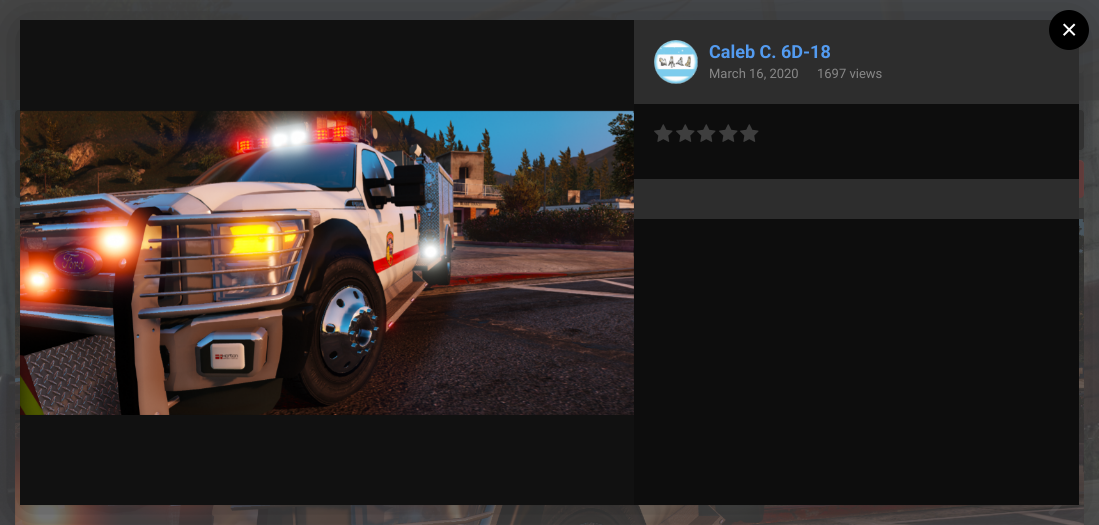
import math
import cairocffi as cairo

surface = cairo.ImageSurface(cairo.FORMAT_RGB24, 1099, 525)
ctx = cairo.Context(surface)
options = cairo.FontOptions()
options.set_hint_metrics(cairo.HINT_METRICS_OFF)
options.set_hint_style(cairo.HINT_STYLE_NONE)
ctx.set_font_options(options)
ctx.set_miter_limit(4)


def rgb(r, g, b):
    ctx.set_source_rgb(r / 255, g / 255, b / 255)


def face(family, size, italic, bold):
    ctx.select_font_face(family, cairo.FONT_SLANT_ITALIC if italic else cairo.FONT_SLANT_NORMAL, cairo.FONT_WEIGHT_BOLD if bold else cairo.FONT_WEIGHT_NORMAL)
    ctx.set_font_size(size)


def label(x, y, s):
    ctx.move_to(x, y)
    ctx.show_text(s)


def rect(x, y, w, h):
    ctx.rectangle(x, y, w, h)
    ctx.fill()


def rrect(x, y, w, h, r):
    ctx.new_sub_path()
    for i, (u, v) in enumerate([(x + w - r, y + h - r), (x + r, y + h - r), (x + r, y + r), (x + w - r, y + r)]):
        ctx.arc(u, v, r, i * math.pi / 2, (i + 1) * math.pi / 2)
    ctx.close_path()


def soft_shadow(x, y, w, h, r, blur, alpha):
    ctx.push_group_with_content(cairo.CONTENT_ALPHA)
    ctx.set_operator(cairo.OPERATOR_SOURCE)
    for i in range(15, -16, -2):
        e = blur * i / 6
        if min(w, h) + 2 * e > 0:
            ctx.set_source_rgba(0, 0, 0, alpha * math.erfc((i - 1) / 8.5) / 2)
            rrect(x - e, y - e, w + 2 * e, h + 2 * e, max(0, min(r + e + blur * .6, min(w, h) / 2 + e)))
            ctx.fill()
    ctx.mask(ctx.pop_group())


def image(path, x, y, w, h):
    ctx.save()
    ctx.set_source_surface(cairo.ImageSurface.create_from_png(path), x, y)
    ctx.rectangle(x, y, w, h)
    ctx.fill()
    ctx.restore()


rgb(255, 255, 255)
ctx.paint()
image('image0.png', 0, 0, 1099, 525)
image('image1.png', 0, 0, 1099, 525)
ctx.set_source_rgba(0.231, 0.231, 0.231, 0.1)
rect(214, 100, 885, 1)
ctx.set_source_rgba(0.282, 0.282, 0.282, 0.85)
rect(0, 0, 1099, 100)
ctx.set_source_rgba(0.529, 0.529, 0.529, 0.08)
rrect(957, 27, 127, 46, 4)
ctx.fill()
rgb(120, 74, 72)
rrect(1046, 160, 38, 38, 4)
ctx.fill()
ctx.set_source_rgba(0.529, 0.529, 0.529, 0.15)
ctx.new_path()
ctx.move_to(1050, 161)
ctx.curve_to(1048, 161, 1046, 163, 1046, 165)
ctx.curve_to(1046, 159, 1050.5, 160, 1055, 160)
ctx.line_to(1075, 160)
ctx.curve_to(1079.5, 160, 1084, 159, 1084, 165)
ctx.curve_to(1084, 163, 1082, 161, 1080, 161)
ctx.close_path()
ctx.fill()
ctx.save()
ctx.set_fill_rule(cairo.FILL_RULE_EVEN_ODD)
ctx.new_path()
ctx.move_to(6, 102)
ctx.line_to(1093, 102)
ctx.line_to(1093, 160)
ctx.line_to(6, 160)
ctx.close_path()
ctx.move_to(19, 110)
ctx.line_to(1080, 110)
ctx.curve_to(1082, 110, 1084, 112, 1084, 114)
ctx.line_to(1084, 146)
ctx.curve_to(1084, 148, 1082, 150, 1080, 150)
ctx.line_to(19, 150)
ctx.curve_to(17, 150, 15, 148, 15, 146)
ctx.line_to(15, 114)
ctx.curve_to(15, 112, 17, 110, 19, 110)
ctx.close_path()
ctx.clip()
rgb(59, 59, 59)
soft_shadow(15, 111, 1069, 40, 4, 2.5, 0.4)
ctx.restore()
ctx.set_source_rgba(0.231, 0.231, 0.231, 0.75)
rrect(15, 110, 1069, 40, 4)
ctx.fill()
rrect(15.5, 110.5, 1068, 39, 3.5)
ctx.set_source_rgba(0.231, 0.231, 0.231, 0.5)
ctx.set_line_width(1)
ctx.stroke()
ctx.set_source_rgba(0.231, 0.231, 0.231, 0.3)
ctx.new_path()
ctx.move_to(763, 111)
ctx.line_to(1079, 111)
ctx.curve_to(1081, 111, 1083, 113, 1083, 115)
ctx.line_to(1083, 145)
ctx.curve_to(1083, 147, 1081, 149, 1079, 149)
ctx.line_to(763, 149)
ctx.close_path()
ctx.fill()
ctx.set_source_rgba(0.231, 0.231, 0.231, 0.7)
rrect(15, 160, 942, 38, 4)
ctx.fill()
rgb(64, 64, 64)
rect(15, 208, 1069, 11)
image('image5.png', 15, 219, 1069, 306)
image('image6.png', 37, 505, 9, 2)
image('image7.png', 1048, 505, 14, 11)
rgb(0, 0, 0)
soft_shadow(20, 25, 1059, 485, 0, 27.5, 0.4)
rgb(45, 45, 45)
rect(634, 20, 445, 84)
rgb(0, 0, 0)
ctx.arc(1069, 30, 20, 0, 2 * math.pi)
ctx.fill()
face('Liberation Sans', 28, 0, 0)
rgb(255, 255, 255)
label(1061, 39, '×')
rgb(17, 17, 17)
rect(20, 20, 614, 485)
rgb(13, 13, 13)
rect(634, 104, 445, 401)
ctx.new_path()
ctx.arc(676, 62, 22, 0, 2 * math.pi)
ctx.fill()
image('image2.png', 654, 40, 44, 44)
ctx.arc(676, 62, 21.5, 0, 2 * math.pi)
ctx.set_source_rgba(0.749, 0.749, 0.749, 0.3)
ctx.stroke()
face('Roboto', 18, 0, 1)
rgb(83, 155, 240)
label(709, 58, 'Caleb C. 6D-18')
face('Roboto', 13, 0, 0)
rgb(135, 135, 135)
label(709, 78, 'March 16, 2020')
label(817, 78, '1697 views')
image('image3.png', 654, 124, 19, 18)
image('image3.png', 676, 124, 19, 18)
image('image3.png', 697, 124, 19, 18)
image('image3.png', 719, 124, 19, 18)
image('image3.png', 740, 124, 19, 18)
rgb(45, 45, 45)
rect(634, 179, 445, 40)
image('image4.png', 20, 110, 614, 305)
surface.write_to_png('render.png')
